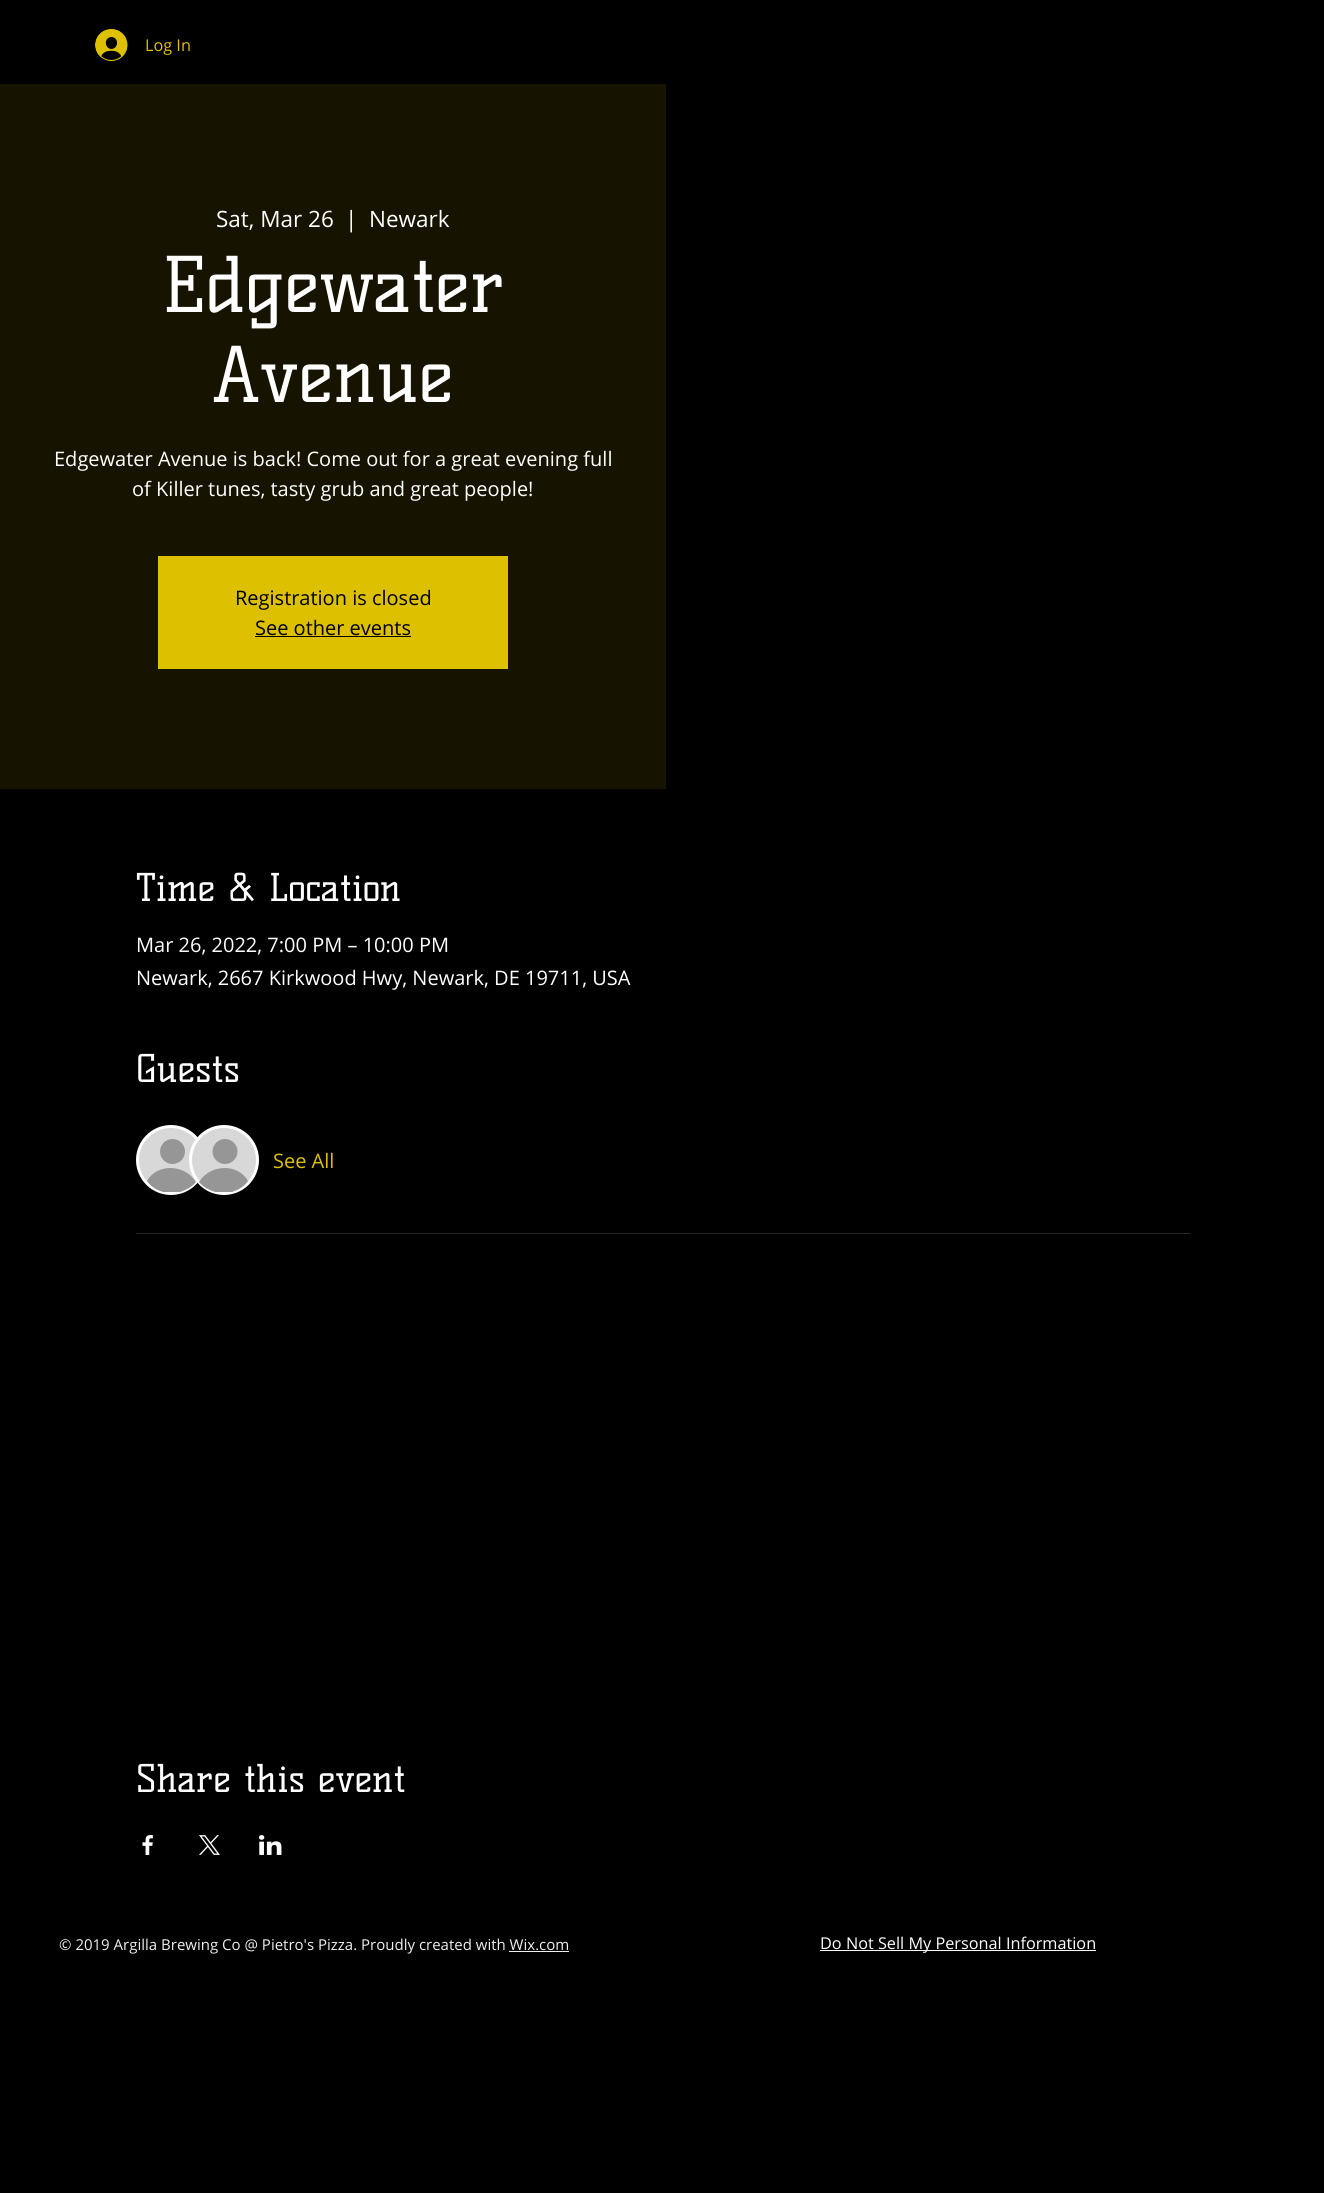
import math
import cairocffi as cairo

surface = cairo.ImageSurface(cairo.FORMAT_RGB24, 1324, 2193)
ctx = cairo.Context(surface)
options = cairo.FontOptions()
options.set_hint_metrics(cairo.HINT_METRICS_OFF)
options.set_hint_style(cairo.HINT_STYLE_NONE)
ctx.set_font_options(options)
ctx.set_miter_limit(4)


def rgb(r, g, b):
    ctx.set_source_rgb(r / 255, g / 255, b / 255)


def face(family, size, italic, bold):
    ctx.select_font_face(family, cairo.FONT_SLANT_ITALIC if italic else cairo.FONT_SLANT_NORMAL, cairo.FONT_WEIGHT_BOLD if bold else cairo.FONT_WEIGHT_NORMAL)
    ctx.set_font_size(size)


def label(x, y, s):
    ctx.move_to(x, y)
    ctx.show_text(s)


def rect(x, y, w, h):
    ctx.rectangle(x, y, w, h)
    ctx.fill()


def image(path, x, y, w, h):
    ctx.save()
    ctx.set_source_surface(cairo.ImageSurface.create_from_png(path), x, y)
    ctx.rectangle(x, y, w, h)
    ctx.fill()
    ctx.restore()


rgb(0, 0, 0)
ctx.paint()
image('image0.png', 95, 29, 33, 32)
face('Open Sans', 16.25, 0, 0)
rgb(221, 192, 0)
label(145, 51, 'Log In')
rgb(22, 19, 0)
rect(0, 84, 666, 705)
face('Open Sans', 22.5, 0, 0)
rgb(255, 255, 255)
label(216, 227, 'Sat, Mar 26')
label(345, 227, '|')
label(369, 227, 'Newark')
face('Kelly Slab', 75, 0, 0)
label(162, 312, 'Edgewater')
label(212, 402, 'Avenue')
face('Open Sans', 20, 0, 0)
label(54, 466, 'Edgewater Avenue is back! Come out for a great evening full')
label(132, 496, 'of Killer tunes, tasty grub and great people!')
rgb(221, 192, 0)
rect(158, 556, 350, 113)
rgb(0, 0, 0)
label(235, 605, 'Registration is closed')
label(255, 635, 'See other events')
rect(255, 636, 156, 1)
face('Kelly Slab', 37.5, 0, 0)
rgb(255, 255, 255)
label(136, 901, 'Time & Location')
face('Open Sans', 20, 0, 0)
label(136, 952, 'Mar 26, 2022, 7:00 PM – 10:00 PM')
label(136, 985, 'Newark, 2667 Kirkwood Hwy, Newark, DE 19711, USA')
face('Kelly Slab', 37.5, 0, 0)
label(136, 1082, 'Guests')
rgb(216, 216, 216)
ctx.new_path()
ctx.arc(171, 1160, 33.5, 0, 2 * math.pi)
ctx.fill_preserve()
rgb(255, 255, 255)
ctx.set_line_width(3)
ctx.stroke()
rgb(150, 150, 150)
ctx.arc(172.5, 1151.5, 12.5, 0, 2 * math.pi)
ctx.fill()
ctx.new_path()
ctx.move_to(163, 1192)
ctx.curve_to(157, 1190, 151, 1187, 147, 1181)
ctx.curve_to(157, 1163, 185, 1164, 196, 1182)
ctx.curve_to(192, 1187, 186, 1190, 180, 1192)
ctx.close_path()
ctx.fill()
rgb(216, 216, 216)
ctx.arc(224, 1160, 33.5, 0, 2 * math.pi)
ctx.fill_preserve()
rgb(255, 255, 255)
ctx.stroke()
rgb(150, 150, 150)
ctx.arc(225, 1151.5, 12.5, 0, 2 * math.pi)
ctx.fill()
ctx.new_path()
ctx.move_to(215, 1192)
ctx.curve_to(209, 1190, 203, 1187, 199, 1182)
ctx.curve_to(210, 1164, 238, 1163, 248, 1181)
ctx.curve_to(244, 1187, 238, 1190, 232, 1192)
ctx.close_path()
ctx.fill()
face('Open Sans', 20, 0, 0)
rgb(221, 192, 0)
label(273, 1168, 'See All')
rgb(38, 38, 38)
rect(136, 1233, 1054, 1)
face('Kelly Slab', 37.5, 0, 0)
rgb(255, 255, 255)
label(136, 1792, 'Share this event')
image('image1.png', 142, 1835, 11, 20)
image('image2.png', 199, 1835, 21, 20)
image('image3.png', 259, 1835, 23, 20)
face('Open Sans', 15, 0, 0)
rgb(239, 239, 239)
label(59, 1950, '© 2019 Argilla Brewing Co @ Pietro\'s Pizza. Proudly created with Wix.com')
rect(509, 1951, 60, 1)
rgb(255, 255, 255)
rect(820, 1950, 276, 1)
face('Open Sans', 16.25, 0, 0)
label(820, 1949, 'Do Not Sell My Personal Information')
surface.write_to_png('render.png')
